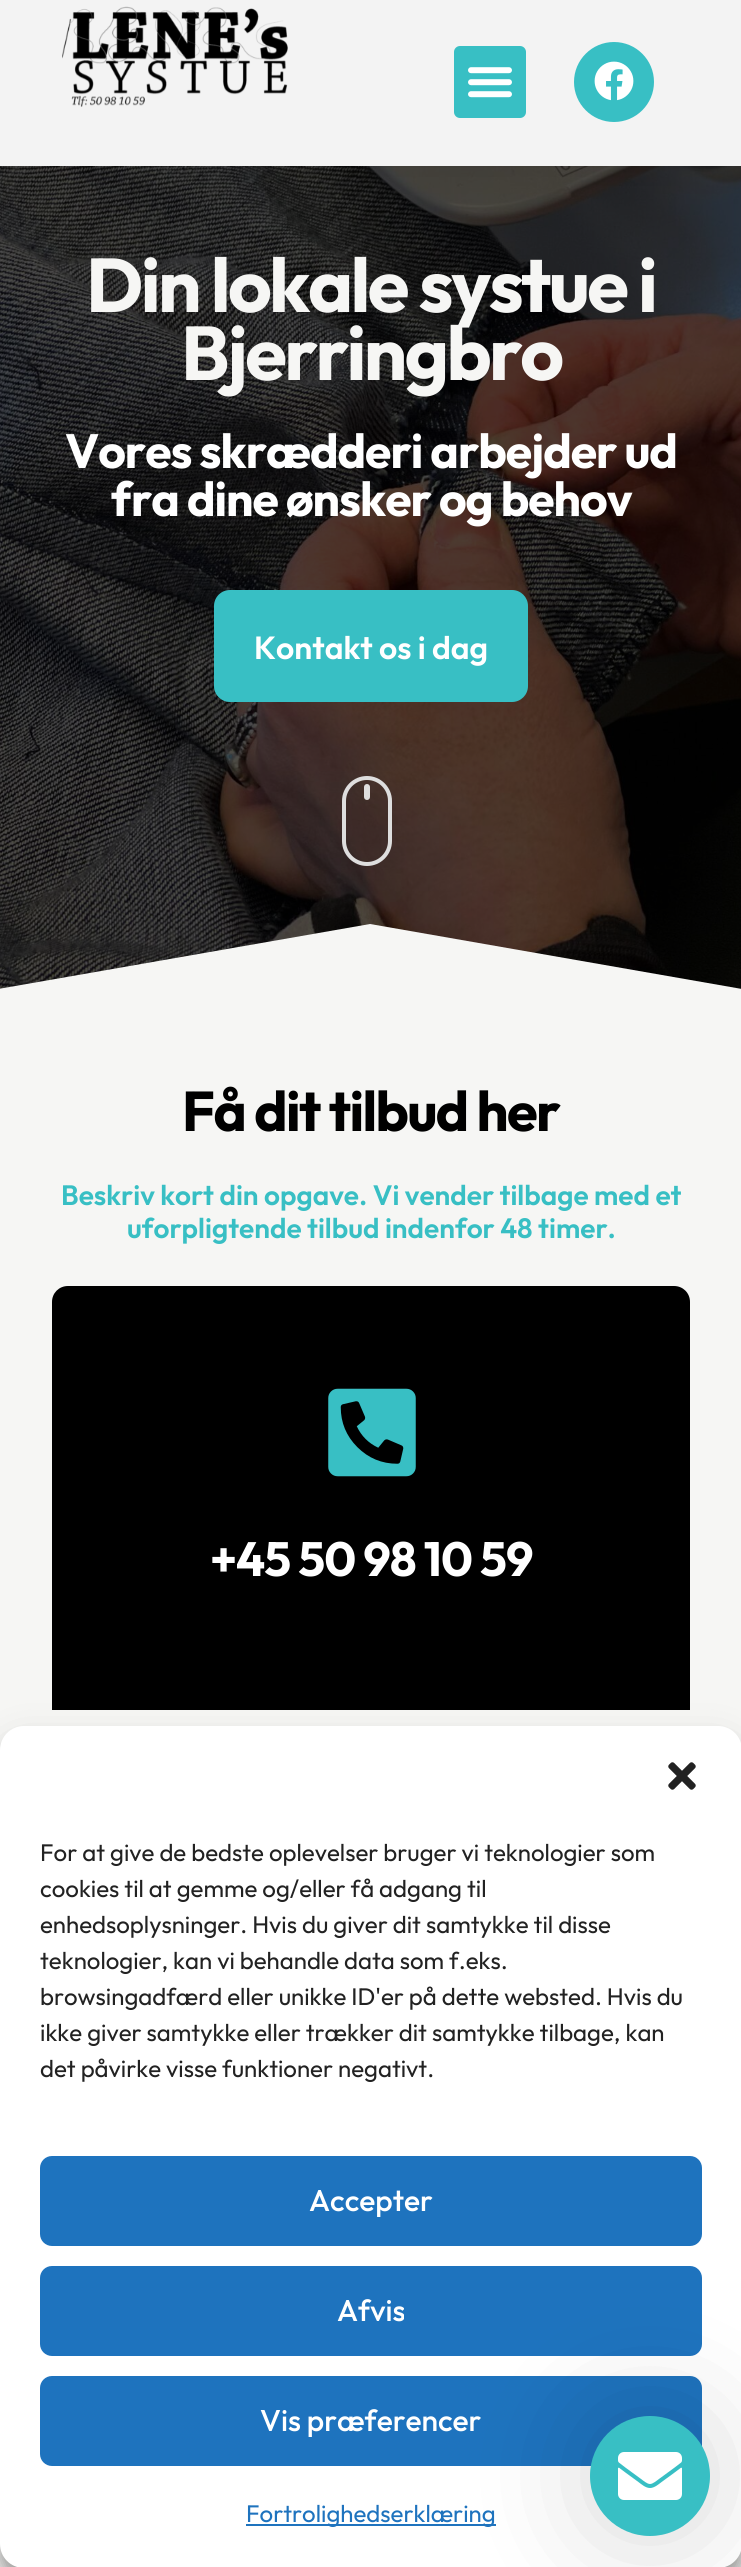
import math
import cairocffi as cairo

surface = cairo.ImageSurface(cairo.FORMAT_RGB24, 741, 2567)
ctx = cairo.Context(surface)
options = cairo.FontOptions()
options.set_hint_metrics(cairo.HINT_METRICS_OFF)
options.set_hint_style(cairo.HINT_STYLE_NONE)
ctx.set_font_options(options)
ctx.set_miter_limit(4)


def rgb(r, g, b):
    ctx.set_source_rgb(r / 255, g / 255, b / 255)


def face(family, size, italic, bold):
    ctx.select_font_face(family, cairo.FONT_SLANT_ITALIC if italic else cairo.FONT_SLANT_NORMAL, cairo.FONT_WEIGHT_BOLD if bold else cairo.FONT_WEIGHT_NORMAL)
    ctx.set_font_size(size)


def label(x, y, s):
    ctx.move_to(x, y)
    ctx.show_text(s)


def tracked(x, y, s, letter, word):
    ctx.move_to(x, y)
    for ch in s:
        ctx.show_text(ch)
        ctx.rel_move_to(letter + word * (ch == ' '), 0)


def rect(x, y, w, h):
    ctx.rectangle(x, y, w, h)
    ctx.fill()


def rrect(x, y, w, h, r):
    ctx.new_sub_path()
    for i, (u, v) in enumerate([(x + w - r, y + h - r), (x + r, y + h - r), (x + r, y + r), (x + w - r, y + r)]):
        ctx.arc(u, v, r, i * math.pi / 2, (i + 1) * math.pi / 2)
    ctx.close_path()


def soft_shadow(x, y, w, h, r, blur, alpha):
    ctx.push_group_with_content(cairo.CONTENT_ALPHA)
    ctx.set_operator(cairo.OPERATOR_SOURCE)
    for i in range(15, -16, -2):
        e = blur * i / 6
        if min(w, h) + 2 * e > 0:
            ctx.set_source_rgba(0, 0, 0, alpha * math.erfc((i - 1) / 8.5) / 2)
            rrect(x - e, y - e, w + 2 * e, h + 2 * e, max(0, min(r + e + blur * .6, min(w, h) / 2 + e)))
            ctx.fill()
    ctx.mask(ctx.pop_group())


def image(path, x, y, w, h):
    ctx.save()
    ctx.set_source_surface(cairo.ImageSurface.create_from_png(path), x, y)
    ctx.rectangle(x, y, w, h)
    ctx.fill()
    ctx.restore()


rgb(246, 246, 244)
ctx.paint()
image('image3.png', 0, 166, 741, 823)
rgb(0, 0, 0)
soft_shadow(10, 18, 722, 146, 0, 26, 0.09)
rgb(243, 243, 243)
rect(0, 0, 741, 166)
image('image0.png', 62, 6, 226, 101)
rgb(56, 191, 196)
rrect(454, 46, 72, 72, 6)
ctx.fill()
image('image1.png', 468, 67, 44, 31)
ctx.arc(614, 82, 40, 0, 2 * math.pi)
ctx.fill()
image('image2.png', 594, 61, 40, 40)
face('Outfit', 76, 0, 1)
rgb(246, 246, 244)
tracked(86, 312, 'Din lokale systue i', -2.6, 0)
tracked(181, 380, 'Bjerringbro', -2.6, 0)
face('Outfit', 48, 0, 1)
rgb(255, 255, 255)
tracked(65, 468, 'Vores skrædderi arbejder ud', -1, 0)
tracked(111, 516, 'fra dine ønsker og behov', -1, 0)
rgb(56, 191, 196)
rrect(214, 590, 314, 112, 16)
ctx.fill()
face('Outfit SemiBold', 32, 0, 0)
rgb(255, 255, 255)
label(254, 659, 'Kontakt os i dag')
ctx.save()
ctx.rectangle(0, 922, 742, 70)
ctx.clip()
rgb(246, 246, 244)
ctx.new_path()
ctx.move_to(370, 924)
ctx.line_to(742, 989)
ctx.line_to(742, 993)
ctx.line_to(-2, 993)
ctx.line_to(-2, 989)
ctx.close_path()
ctx.fill()
ctx.restore()
rrect(344, 778, 46, 86, 23)
rgb(222, 222, 222)
ctx.set_line_width(4)
ctx.stroke()
rrect(364, 784, 6, 16, 3)
ctx.fill()
face('Outfit', 56, 0, 1)
rgb(0, 0, 0)
tracked(182, 1131, 'Få dit tilbud her', -1.6, 0)
face('Outfit SemiBold', 28, 0, 0)
rgb(56, 191, 196)
label(61, 1205, 'Beskriv kort din opgave. Vi vender tilbage med et')
label(127, 1238, 'uforpligtende tilbud indenfor 48 timer.')
rgb(0, 0, 0)
ctx.new_path()
ctx.move_to(68, 1286)
ctx.line_to(674, 1286)
ctx.curve_to(683, 1286, 690, 1293, 690, 1302)
ctx.line_to(690, 1710)
ctx.line_to(52, 1710)
ctx.line_to(52, 1302)
ctx.curve_to(52, 1293, 59, 1286, 68, 1286)
ctx.close_path()
ctx.fill()
image('image4.png', 328, 1388, 88, 89)
face('Outfit', 48, 0, 1)
rgb(255, 255, 255)
tracked(210, 1576, '+45 50 98 10 59', -1, 0)
rgb(128, 128, 128)
soft_shadow(-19, 2420, 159, 120, 4, 5, 1)
rgb(0, 0, 0)
soft_shadow(0, 1738, 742, 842, 24, 6, 0.23)
soft_shadow(0, 1746, 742, 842, 24, 20, 0.19)
rgb(255, 255, 255)
rrect(0, 1726, 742, 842, 24)
ctx.fill()
image('image5.png', 668, 1762, 28, 28)
face('Outfit', 24, 0, 0)
rgb(34, 34, 34)
label(40, 1861, 'For at give de bedste oplevelser bruger vi teknologier som')
label(40, 1897, 'cookies til at gemme og/eller få adgang til')
label(40, 1933, 'enhedsoplysninger. Hvis du giver dit samtykke til disse')
label(40, 1969, 'teknologier, kan vi behandle data som f.eks.')
label(40, 2005, 'browsingadfærd eller unikke ID\'er på dette websted. Hvis du')
label(40, 2041, 'ikke giver samtykke eller trækker dit samtykke tilbage, kan')
label(40, 2077, 'det påvirke visse funktioner negativt.')
rgb(30, 115, 190)
rrect(41, 2157, 660, 88, 11)
ctx.fill_preserve()
ctx.set_line_width(2)
ctx.stroke()
face('Outfit Medium', 30, 0, 0)
rgb(255, 255, 255)
label(309, 2211, 'Accepter')
rgb(30, 115, 190)
rrect(41, 2267, 660, 88, 11)
ctx.fill_preserve()
ctx.stroke()
rgb(255, 255, 255)
label(337, 2321, 'Afvis')
rgb(30, 115, 190)
rrect(41, 2377, 660, 88, 11)
ctx.fill_preserve()
ctx.stroke()
rgb(255, 255, 255)
label(260, 2431, 'Vis præferencer')
rgb(30, 115, 190)
rect(246, 2524, 250, 2)
face('Outfit', 24, 0, 0)
label(246, 2522, 'Fortrolighedserklæring')
rgb(0, 0, 0)
soft_shadow(590, 2416, 120, 120, 60, 60, 0.15)
rgb(56, 191, 196)
ctx.arc(650, 2476, 60, 0, 2 * math.pi)
ctx.fill()
image('image6.png', 618, 2452, 64, 48)
surface.write_to_png('render.png')
